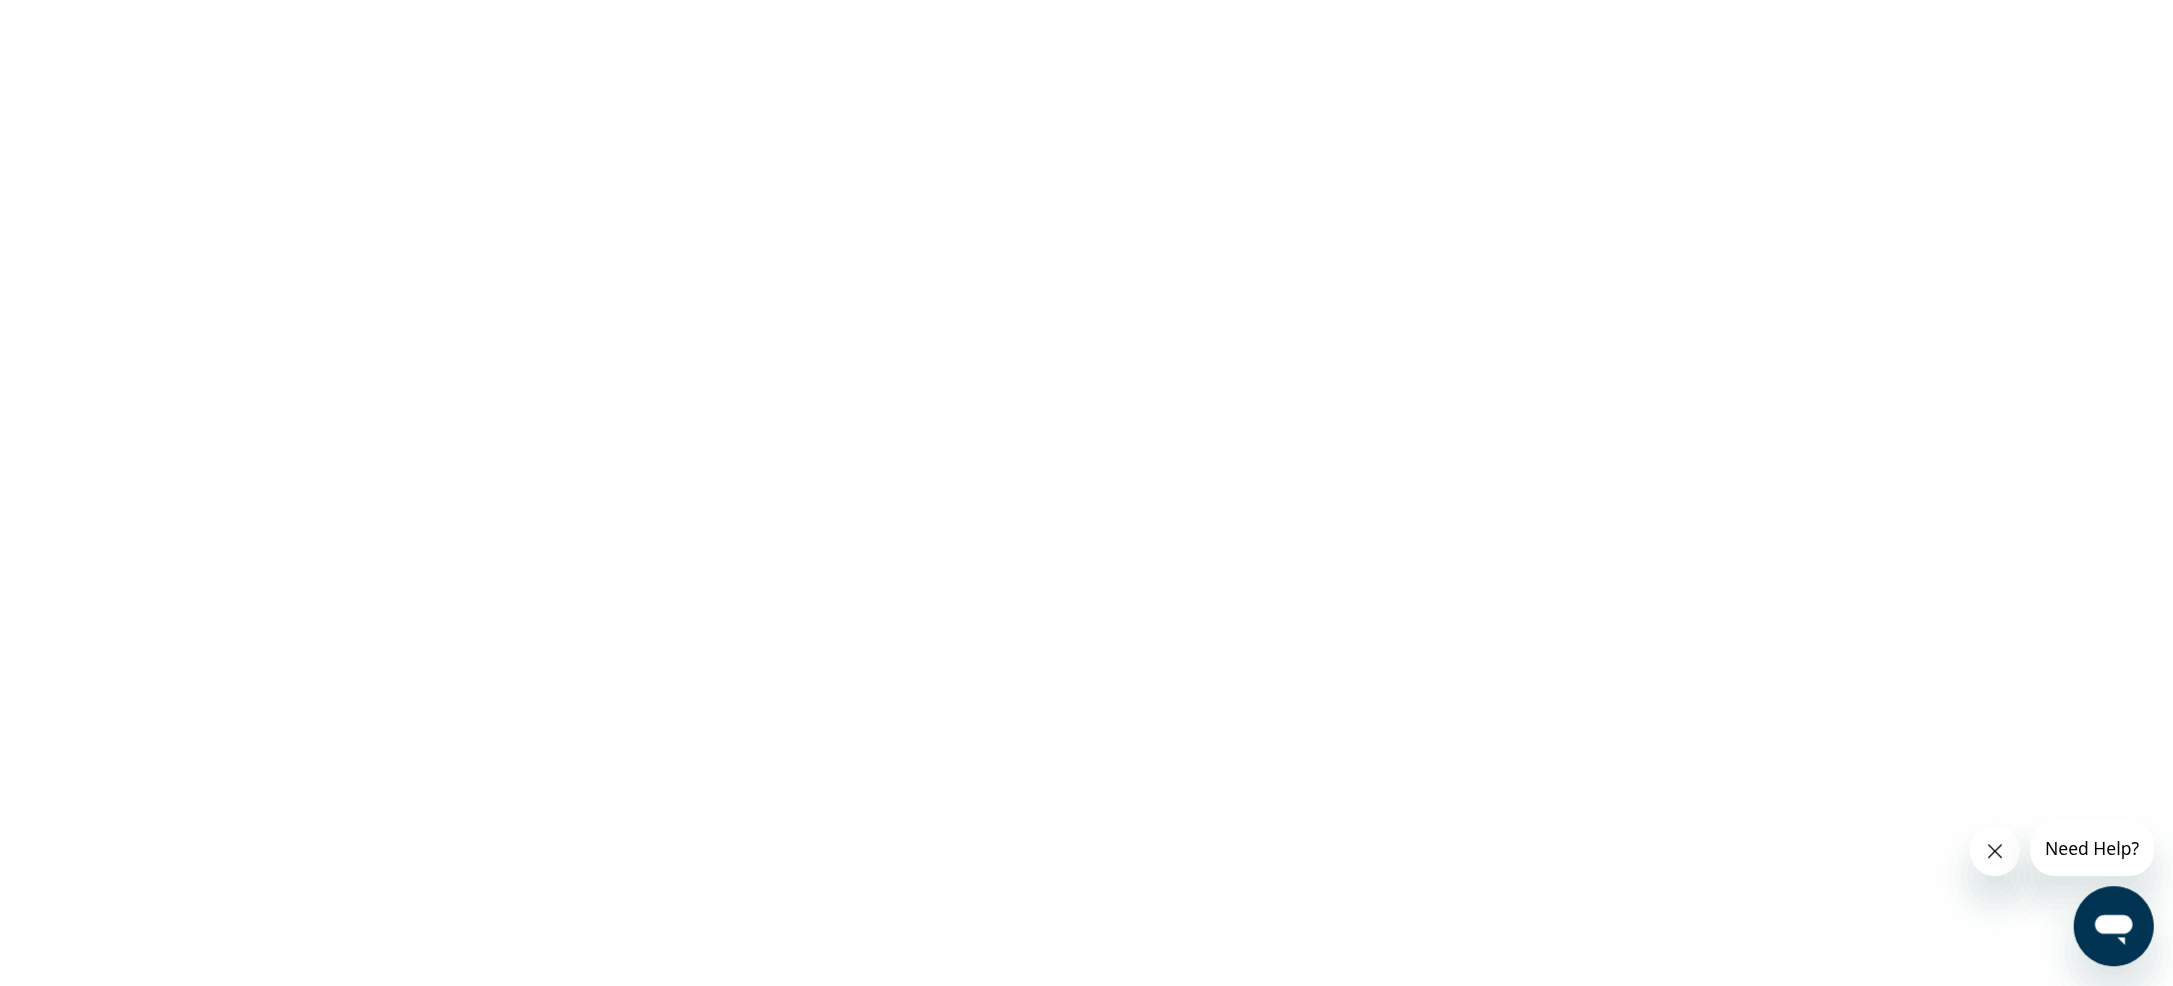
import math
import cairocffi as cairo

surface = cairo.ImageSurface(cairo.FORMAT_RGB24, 2173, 986)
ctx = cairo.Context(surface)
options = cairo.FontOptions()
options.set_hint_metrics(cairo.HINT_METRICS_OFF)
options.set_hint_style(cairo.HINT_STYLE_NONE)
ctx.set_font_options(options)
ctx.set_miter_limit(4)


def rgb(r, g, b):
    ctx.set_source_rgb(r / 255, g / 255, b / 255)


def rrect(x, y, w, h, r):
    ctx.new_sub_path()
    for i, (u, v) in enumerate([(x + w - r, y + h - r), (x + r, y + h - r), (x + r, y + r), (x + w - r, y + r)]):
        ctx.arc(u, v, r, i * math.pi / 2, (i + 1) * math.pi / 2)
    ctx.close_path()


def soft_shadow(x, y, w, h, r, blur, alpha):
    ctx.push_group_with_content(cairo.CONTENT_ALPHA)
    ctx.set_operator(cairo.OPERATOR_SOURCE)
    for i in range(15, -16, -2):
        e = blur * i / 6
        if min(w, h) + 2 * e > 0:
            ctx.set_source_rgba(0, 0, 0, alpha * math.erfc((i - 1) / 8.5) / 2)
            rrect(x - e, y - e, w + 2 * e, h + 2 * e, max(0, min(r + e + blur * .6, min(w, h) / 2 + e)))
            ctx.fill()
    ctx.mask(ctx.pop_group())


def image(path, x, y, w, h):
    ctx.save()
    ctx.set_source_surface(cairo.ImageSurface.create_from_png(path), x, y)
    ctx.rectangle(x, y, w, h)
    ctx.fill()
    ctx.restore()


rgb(255, 255, 255)
ctx.paint()
ctx.save()
ctx.set_fill_rule(cairo.FILL_RULE_EVEN_ODD)
ctx.new_path()
ctx.move_to(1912, 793)
ctx.line_to(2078, 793)
ctx.line_to(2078, 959)
ctx.line_to(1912, 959)
ctx.close_path()
ctx.move_to(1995, 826)
ctx.curve_to(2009, 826, 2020, 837, 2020, 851)
ctx.curve_to(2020, 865, 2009, 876, 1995, 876)
ctx.curve_to(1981, 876, 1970, 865, 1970, 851)
ctx.curve_to(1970, 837, 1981, 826, 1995, 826)
ctx.close_path()
ctx.clip()
rgb(23, 73, 77)
soft_shadow(1970, 851, 50, 50, 25, 19, 0.15)
ctx.restore()
image('image1.png', 1988, 844, 14, 15)
ctx.save()
ctx.set_fill_rule(cairo.FILL_RULE_EVEN_ODD)
ctx.new_path()
ctx.move_to(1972, 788)
ctx.line_to(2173, 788)
ctx.line_to(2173, 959)
ctx.line_to(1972, 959)
ctx.close_path()
ctx.move_to(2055, 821)
ctx.line_to(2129, 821)
ctx.curve_to(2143, 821, 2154, 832, 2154, 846)
ctx.line_to(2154, 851)
ctx.curve_to(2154, 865, 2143, 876, 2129, 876)
ctx.line_to(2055, 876)
ctx.curve_to(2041, 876, 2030, 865, 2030, 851)
ctx.line_to(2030, 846)
ctx.curve_to(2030, 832, 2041, 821, 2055, 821)
ctx.close_path()
ctx.clip()
rgb(23, 73, 77)
soft_shadow(2030, 846, 124, 55, 25, 19, 0.15)
ctx.restore()
image('image0.png', 2031, 841, 108, 31)
rgb(23, 73, 77)
soft_shadow(2074, 911, 80, 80, 40, 19, 0.15)
image('image2.png', 2073, 886, 81, 81)
surface.write_to_png('render.png')
